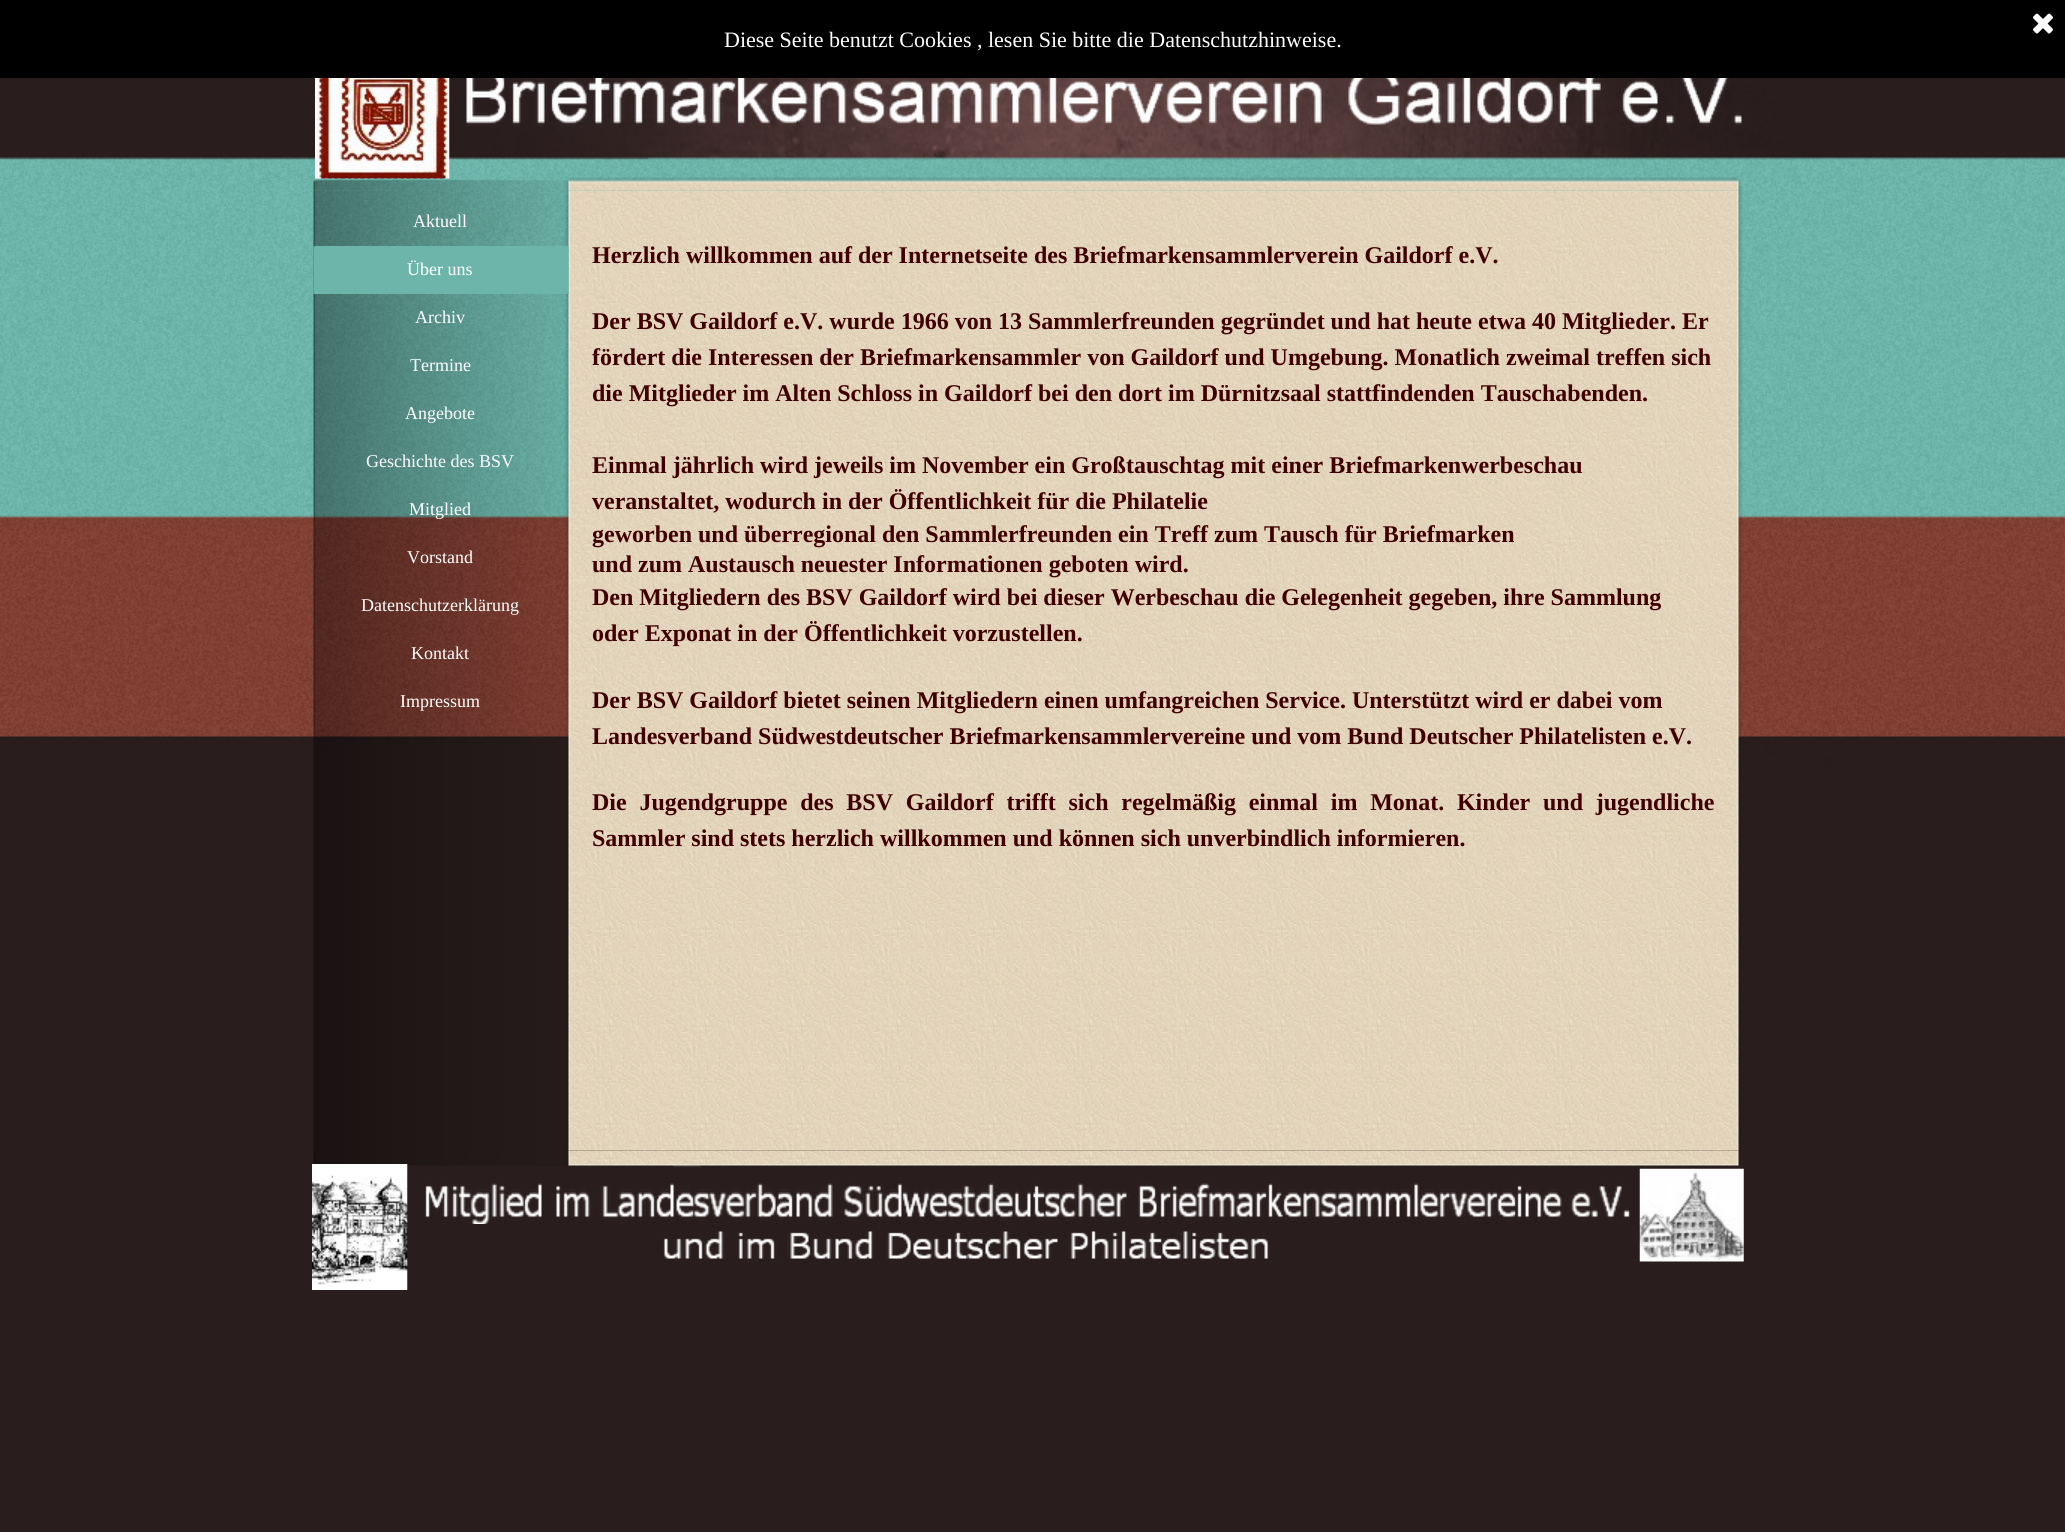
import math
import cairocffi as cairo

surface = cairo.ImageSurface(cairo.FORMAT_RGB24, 2065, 1532)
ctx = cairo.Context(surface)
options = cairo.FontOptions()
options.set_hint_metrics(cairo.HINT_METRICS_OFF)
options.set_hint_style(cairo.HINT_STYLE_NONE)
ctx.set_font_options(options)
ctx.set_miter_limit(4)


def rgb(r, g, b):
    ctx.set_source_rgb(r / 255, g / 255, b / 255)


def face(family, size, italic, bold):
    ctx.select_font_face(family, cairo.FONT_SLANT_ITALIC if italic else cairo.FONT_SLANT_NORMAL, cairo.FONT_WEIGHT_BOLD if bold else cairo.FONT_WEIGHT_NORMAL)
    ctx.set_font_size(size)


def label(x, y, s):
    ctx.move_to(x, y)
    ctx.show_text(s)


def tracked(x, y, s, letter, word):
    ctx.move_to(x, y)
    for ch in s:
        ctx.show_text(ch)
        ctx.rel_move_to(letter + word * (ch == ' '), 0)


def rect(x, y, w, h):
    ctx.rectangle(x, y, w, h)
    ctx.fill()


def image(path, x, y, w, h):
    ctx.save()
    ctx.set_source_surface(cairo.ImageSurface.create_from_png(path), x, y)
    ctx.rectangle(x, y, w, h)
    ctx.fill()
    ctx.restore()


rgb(255, 255, 255)
ctx.paint()
rgb(0, 0, 0)
rect(0, 0, 2065, 78)
image('image0.png', 2033, 13, 20, 21)
face('Liberation Serif', 22, 0, 0)
rgb(255, 255, 255)
label(724, 47, 'Diese Seite benutzt Cookies , lesen Sie bitte die Datenschutzhinweise.')
image('image1.png', 0, 78, 2065, 1454)
image('image2.png', 313, 177, 1430, 14)
image('image3.png', 315, 78, 135, 101)
image('image4.png', 466, 78, 1276, 48)
image('image7.png', 508, 190, 1235, 961)
image('image8.png', 313, 1150, 1426, 17)
image('image5.png', 313, 190, 196, 961)
face('Liberation Serif', 18, 0, 0)
label(413, 227, 'Aktuell')
image('image6.png', 313, 246, 256, 48)
label(407, 275, 'Über uns')
label(415, 323, 'Archiv')
label(410, 371, 'Termine')
label(405, 419, 'Angebote')
label(366, 467, 'Geschichte des BSV')
label(409, 515, 'Mitglied')
label(407, 563, 'Vorstand')
label(361, 611, 'Datenschutzerklärung')
label(411, 659, 'Kontakt')
label(400, 707, 'Impressum')
face('Liberation Serif', 24, 0, 1)
rgb(64, 0, 0)
label(592, 263, 'Herzlich willkommen auf der Internetseite des Briefmarkensammlerverein Gaildorf e.V.')
label(592, 329, 'Der BSV Gaildorf e.V. wurde 1966 von 13 Sammlerfreunden gegründet und hat heute etwa 40 Mitglieder. Er')
label(592, 365, 'fördert die Interessen der Briefmarkensammler von Gaildorf und Umgebung. Monatlich zweimal treffen sich')
label(592, 401, 'die Mitglieder im Alten Schloss in Gaildorf bei den dort im Dürnitzsaal stattfindenden Tauschabenden.')
label(592, 473, 'Einmal jährlich wird jeweils im November ein Großtauschtag mit einer Briefmarkenwerbeschau')
label(592, 509, 'veranstaltet, wodurch in der Öffentlichkeit für die Philatelie')
label(592, 542, 'geworben und überregional den Sammlerfreunden ein Treff zum Tausch für Briefmarken')
label(592, 572, 'und zum Austausch neuester Informationen geboten wird.')
label(592, 605, 'Den Mitgliedern des BSV Gaildorf wird bei dieser Werbeschau die Gelegenheit gegeben, ihre Sammlung')
label(592, 641, 'oder Exponat in der Öffentlichkeit vorzustellen.')
label(592, 708, 'Der BSV Gaildorf bietet seinen Mitgliedern einen umfangreichen Service. Unterstützt wird er dabei vom')
label(592, 744, 'Landesverband Südwestdeutscher Briefmarkensammlervereine und vom Bund Deutscher Philatelisten e.V.')
tracked(592, 810, 'Die Jugendgruppe des BSV Gaildorf trifft sich regelmäßig einmal im Monat. Kinder und jugendliche', 0, 6.75)
label(592, 846, 'Sammler sind stets herzlich willkommen und können sich unverbindlich informieren.')
image('image9.png', 312, 1164, 96, 126)
image('image10.png', 425, 1183, 1205, 41)
image('image11.png', 1639, 1168, 105, 94)
image('image12.png', 663, 1231, 606, 28)
surface.write_to_png('render.png')
